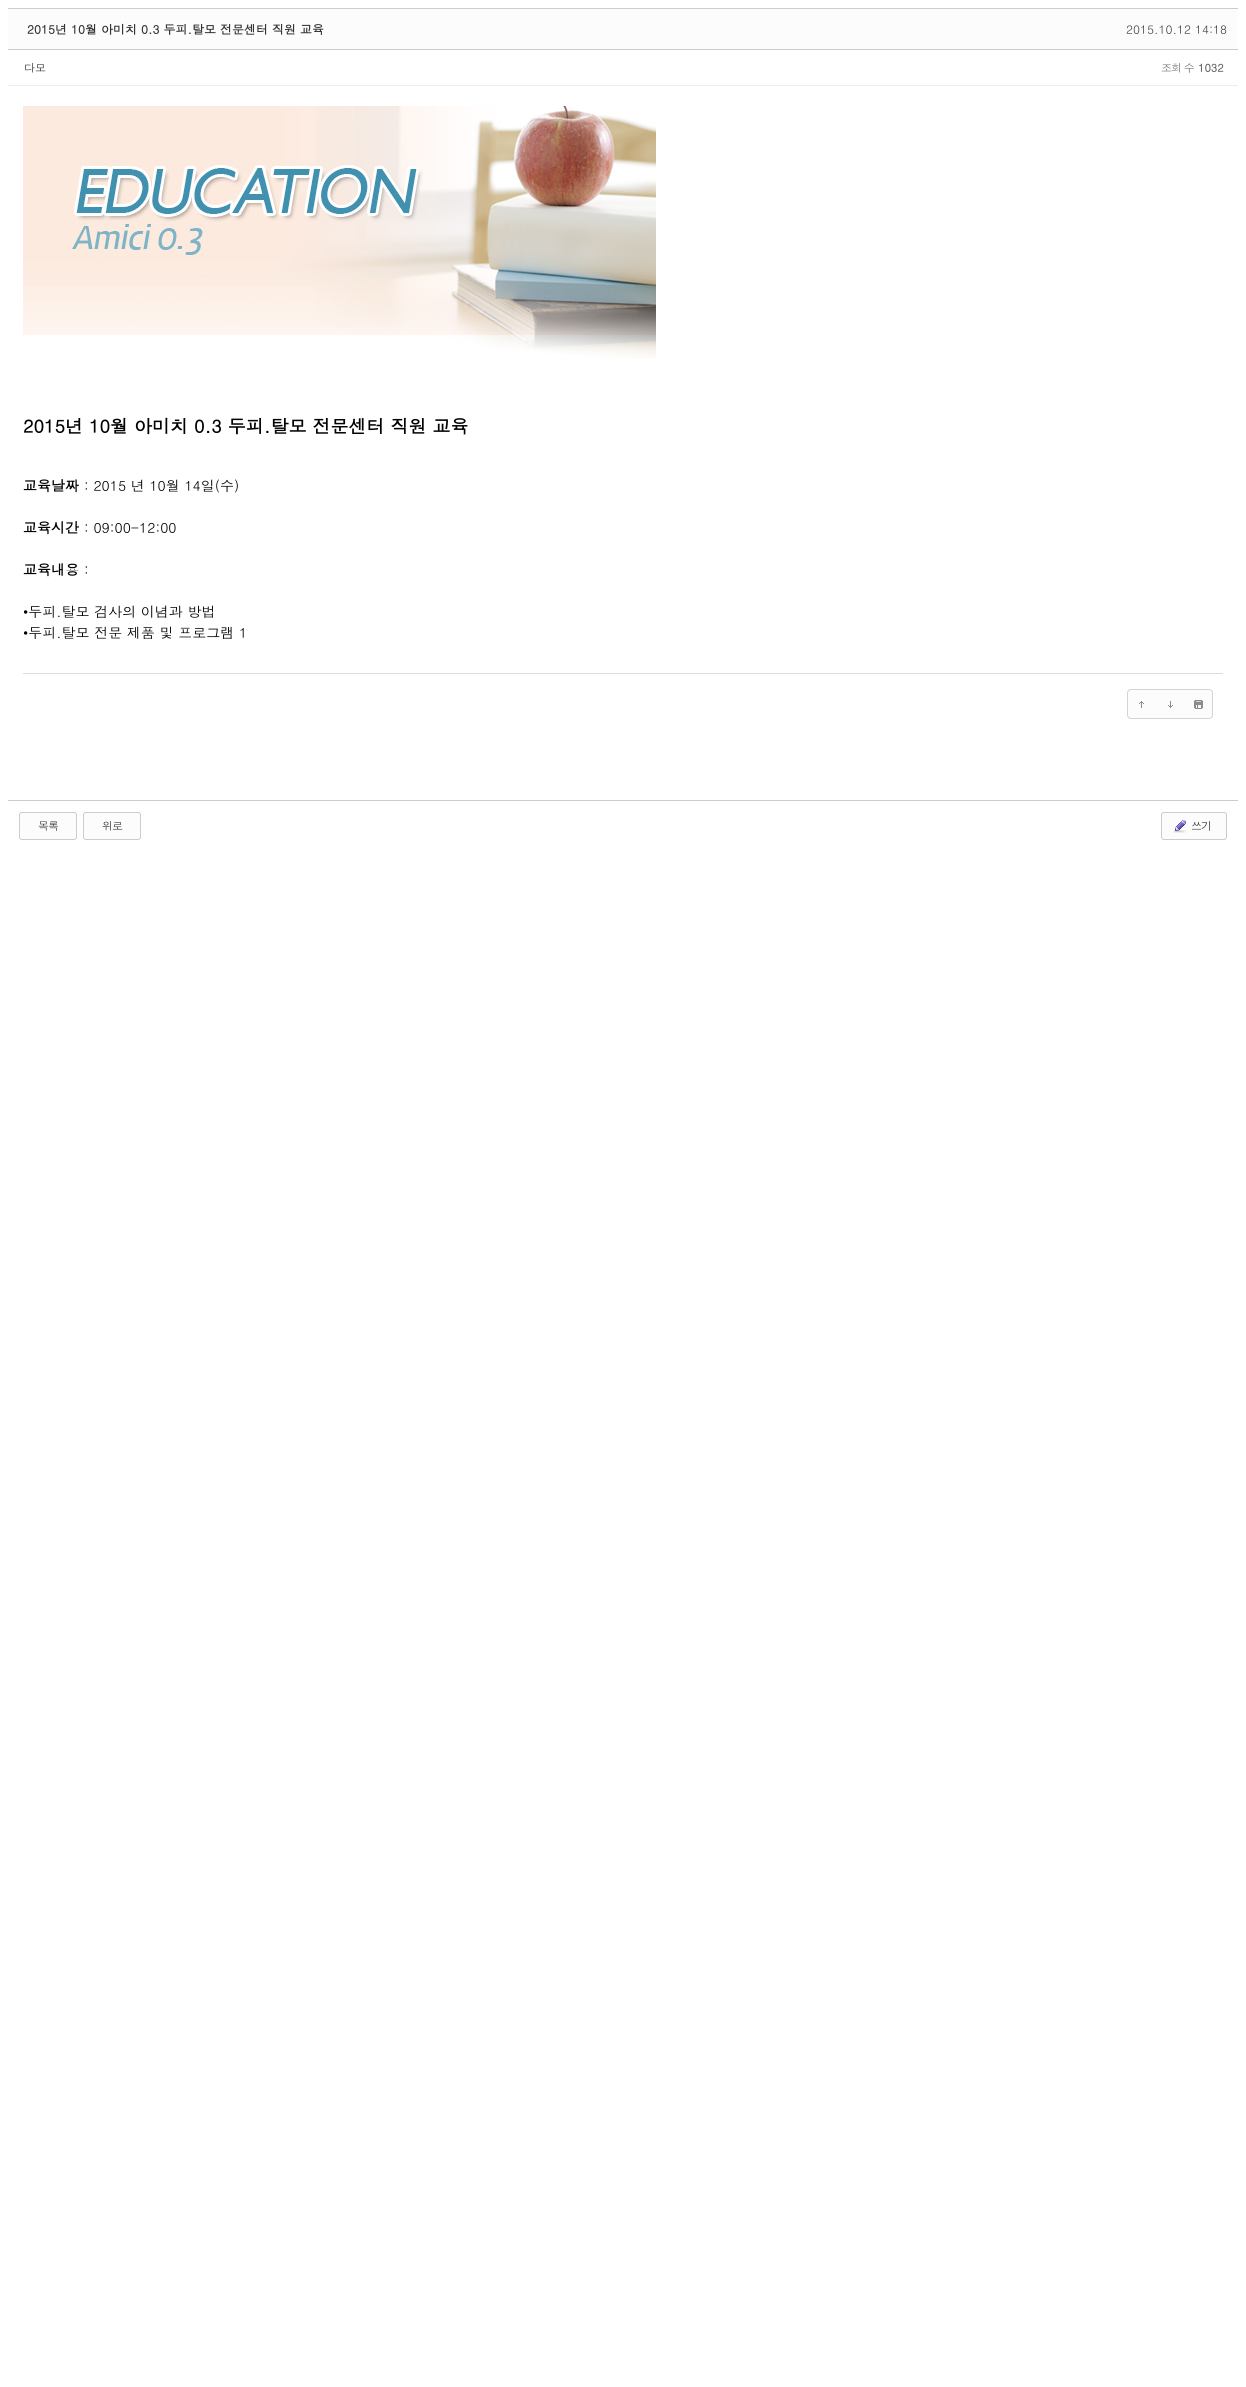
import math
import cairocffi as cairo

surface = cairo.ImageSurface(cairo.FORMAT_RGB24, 1246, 2387)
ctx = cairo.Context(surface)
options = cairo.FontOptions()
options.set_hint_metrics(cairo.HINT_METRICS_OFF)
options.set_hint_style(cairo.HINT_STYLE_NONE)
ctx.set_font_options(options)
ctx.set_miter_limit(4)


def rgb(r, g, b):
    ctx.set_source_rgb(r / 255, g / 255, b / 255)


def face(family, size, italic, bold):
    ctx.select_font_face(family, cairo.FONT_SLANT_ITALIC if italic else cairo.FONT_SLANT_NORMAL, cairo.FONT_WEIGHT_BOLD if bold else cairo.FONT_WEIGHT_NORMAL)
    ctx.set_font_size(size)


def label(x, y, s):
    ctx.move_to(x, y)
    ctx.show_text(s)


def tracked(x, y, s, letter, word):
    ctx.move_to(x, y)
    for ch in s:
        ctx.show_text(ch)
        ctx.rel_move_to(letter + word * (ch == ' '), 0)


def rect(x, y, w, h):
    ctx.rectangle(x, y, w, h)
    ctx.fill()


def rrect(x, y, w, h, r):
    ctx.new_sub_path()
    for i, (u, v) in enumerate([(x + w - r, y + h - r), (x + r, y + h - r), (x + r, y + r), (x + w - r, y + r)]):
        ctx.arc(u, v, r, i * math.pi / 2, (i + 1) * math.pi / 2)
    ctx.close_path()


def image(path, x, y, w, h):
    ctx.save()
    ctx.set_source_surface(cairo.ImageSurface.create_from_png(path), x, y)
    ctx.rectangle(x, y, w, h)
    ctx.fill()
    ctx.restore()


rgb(255, 255, 255)
ctx.paint()
rgb(252, 252, 252)
rect(8, 9, 1230, 40)
rgb(204, 204, 204)
rect(8, 8, 1230, 1)
rect(8, 49, 1230, 1)
face('Dotum', 12, 0, 1)
rgb(51, 51, 51)
label(27, 34, '2015년 10월 아미치 0.3 두피.탈모 전문센터 직원 교육')
face('Dotum', 12, 0, 0)
rgb(68, 68, 68)
label(1126, 34, '2015.10.12 14:18')
rgb(238, 238, 238)
rect(8, 85, 1230, 1)
face('Dotum', 11, 0, 0)
rgb(51, 51, 51)
label(24, 72, '다모')
rgb(119, 119, 119)
tracked(1161, 72, '조회 수', -1, 0)
face('Dotum', 11, 0, 1)
rgb(102, 102, 102)
label(1198, 72, '1032')
image('image0.png', 23, 106, 633, 253)
face('Dotum', 18, 0, 1)
rgb(0, 0, 0)
label(23, 433, '2015년 10월 아미치 0.3 두피.탈모 전문센터 직원 교육')
face('Dotum', 14, 0, 1)
label(23, 491, '교육날짜')
face('Dotum', 14, 0, 0)
label(84, 491, ': 2015 년 10월 14일(수)')
face('Dotum', 14, 0, 1)
label(23, 533, '교육시간')
face('Dotum', 14, 0, 0)
label(84, 533, ': 09:00-12:00')
face('Dotum', 14, 0, 1)
label(23, 575, '교육내용')
face('Dotum', 14, 0, 0)
label(84, 575, ':')
label(23, 617, '•두피.탈모 검사의 이념과 방법')
label(23, 638, '•두피.탈모 전문 제품 및 프로그램 1')
rgb(221, 221, 221)
rect(23, 673, 1200, 1)
rgb(252, 252, 252)
rrect(1127.5, 689.5, 85, 29, 3.5)
ctx.fill_preserve()
rgb(211, 211, 211)
ctx.set_line_width(1)
ctx.stroke()
image('image1.png', 1139, 701, 5, 7)
image('image2.png', 1168, 701, 5, 7)
image('image3.png', 1194, 700, 9, 9)
rgb(204, 204, 204)
rect(8, 800, 1230, 1)
rgb(252, 252, 252)
rrect(19.5, 812.5, 57, 27, 2.5)
ctx.fill_preserve()
rgb(204, 204, 204)
ctx.stroke()
face('Dotum', 11, 0, 0)
rgb(51, 51, 51)
tracked(38, 830, '목록', -1, 0)
rgb(252, 252, 252)
rrect(83.5, 812.5, 57, 27, 2.5)
ctx.fill_preserve()
rgb(204, 204, 204)
ctx.stroke()
rgb(51, 51, 51)
tracked(102, 830, '위로', -1, 0)
rgb(252, 252, 252)
rrect(1161.5, 812.5, 65, 27, 2.5)
ctx.fill_preserve()
rgb(204, 204, 204)
ctx.stroke()
image('image4.png', 1173, 820, 13, 13)
rgb(51, 51, 51)
tracked(1191, 830, '쓰기', -1, 0)
surface.write_to_png('render.png')
